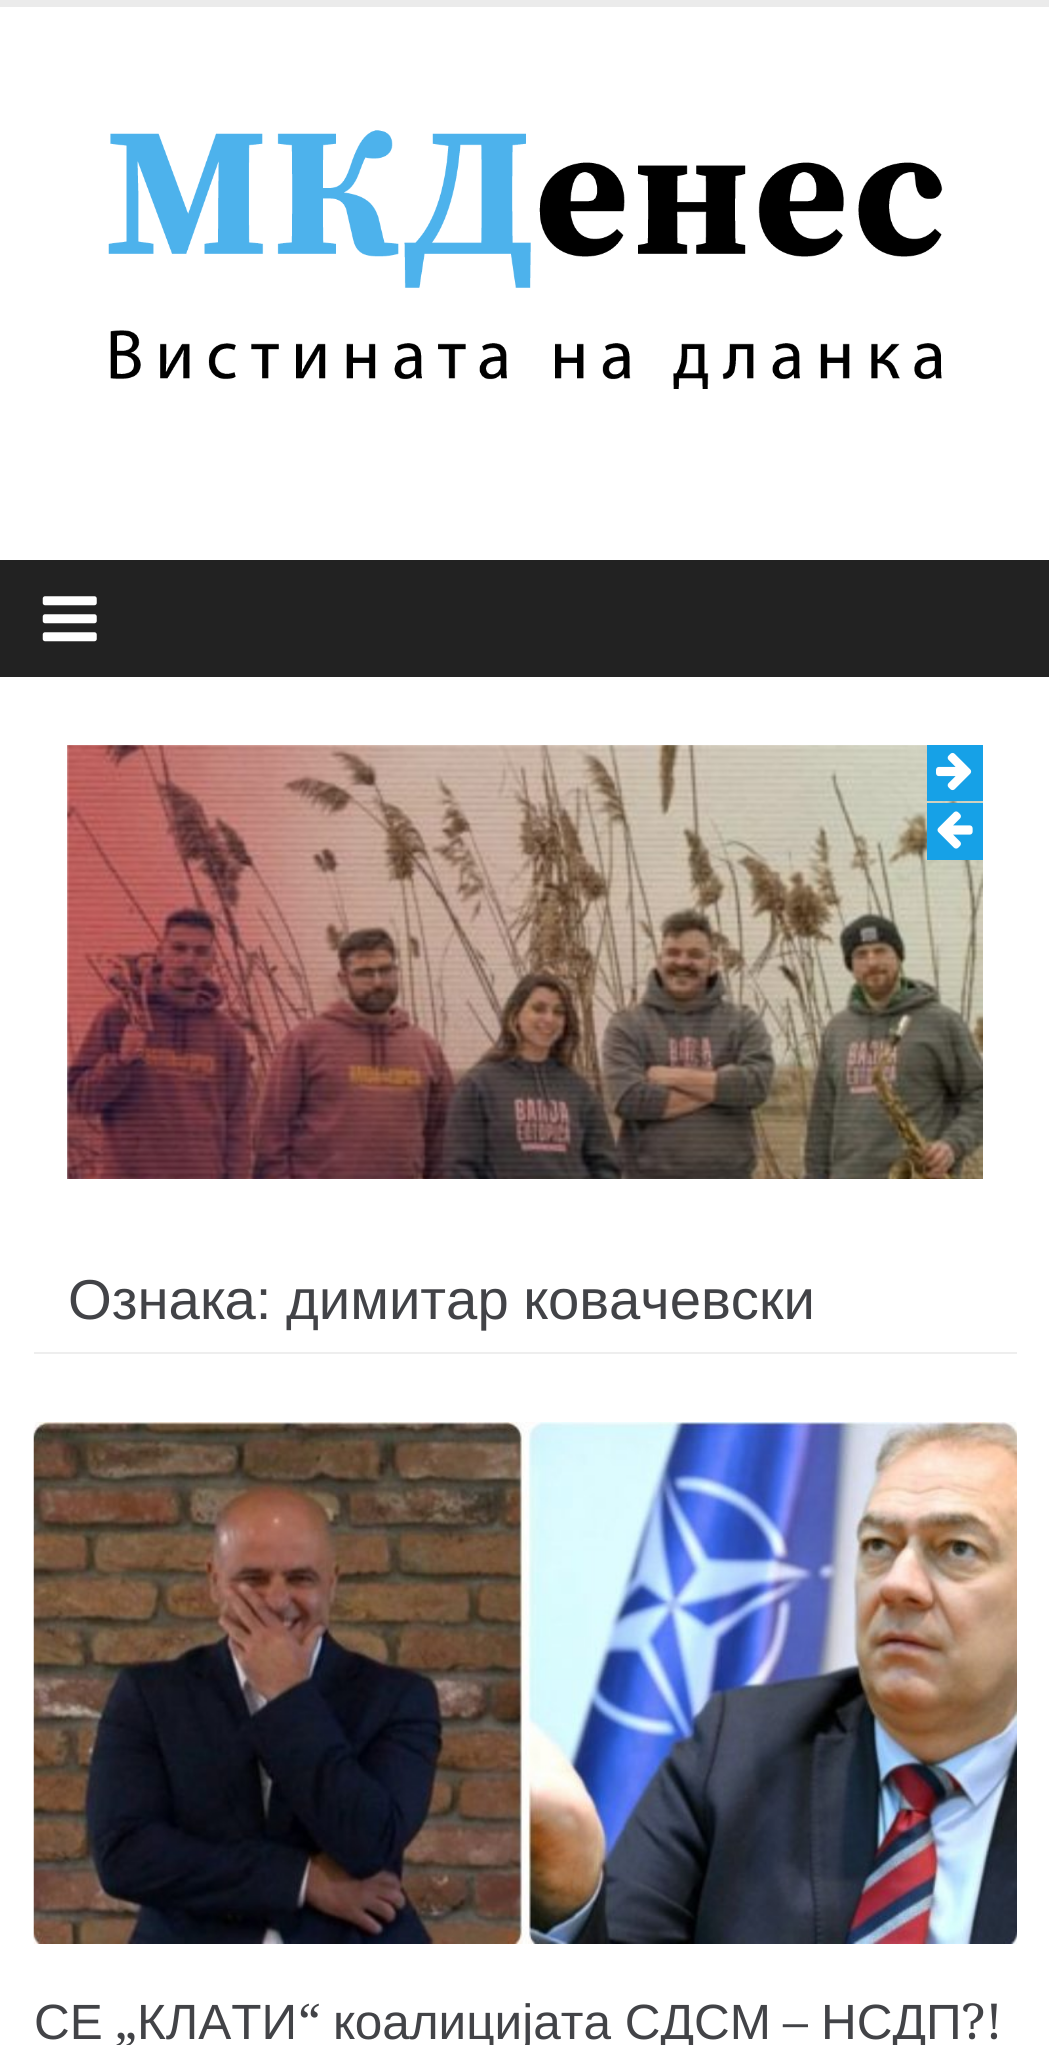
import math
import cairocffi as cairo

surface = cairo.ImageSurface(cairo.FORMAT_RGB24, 1049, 2045)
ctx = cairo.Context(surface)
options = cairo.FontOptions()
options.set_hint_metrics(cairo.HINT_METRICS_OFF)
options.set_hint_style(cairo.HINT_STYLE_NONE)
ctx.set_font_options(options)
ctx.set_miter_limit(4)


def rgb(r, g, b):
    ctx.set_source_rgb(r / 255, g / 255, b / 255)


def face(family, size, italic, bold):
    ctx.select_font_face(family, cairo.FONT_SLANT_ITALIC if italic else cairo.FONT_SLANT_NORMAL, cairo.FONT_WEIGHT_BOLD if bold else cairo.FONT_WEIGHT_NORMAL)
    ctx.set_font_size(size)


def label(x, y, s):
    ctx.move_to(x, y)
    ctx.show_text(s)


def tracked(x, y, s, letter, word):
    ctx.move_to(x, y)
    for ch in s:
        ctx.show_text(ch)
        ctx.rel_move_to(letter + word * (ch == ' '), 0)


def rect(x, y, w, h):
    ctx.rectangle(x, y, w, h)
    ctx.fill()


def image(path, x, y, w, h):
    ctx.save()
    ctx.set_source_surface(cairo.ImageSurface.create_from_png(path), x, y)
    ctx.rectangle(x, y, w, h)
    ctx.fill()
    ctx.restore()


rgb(255, 255, 255)
ctx.paint()
rgb(235, 235, 235)
rect(0, 0, 1049, 7)
image('image0.png', 108, 130, 835, 259)
rgb(34, 34, 34)
rect(0, 560, 1049, 117)
image('image1.png', 42, 596, 55, 46)
image('image2.png', 67, 745, 916, 434)
rgb(22, 161, 231)
rect(927, 745, 56, 56)
image('image3.png', 936, 752, 36, 39)
rect(927, 803, 56, 57)
image('image4.png', 937, 811, 36, 38)
rgb(238, 238, 238)
rect(34, 1352, 983, 2)
face('Liberation Sans', 56.25, 0, 0)
rgb(66, 67, 71)
label(68, 1319, 'Ознака:')
tracked(286, 1319, 'димитар ковачевски', 0, -1)
image('image5.png', 33, 1422, 984, 522)
face('Liberation Sans', 49.5, 0, 0)
label(34, 2039, 'СЕ')
label(137, 2039, 'КЛАТИ')
face('Droid Serif', 49.5, 0, 0)
label(298, 2039, '“')
face('Liberation Sans', 49.5, 0, 0)
label(333, 2039, 'коалицијата СДСМ')
face('Droid Serif', 49.5, 0, 0)
label(783, 2039, '–')
face('Liberation Sans', 49.5, 0, 0)
label(821, 2039, 'НСДП')
face('Droid Serif', 49.5, 0, 0)
label(961, 2039, '?!')
label(115, 2039, '„')
surface.write_to_png('render.png')
